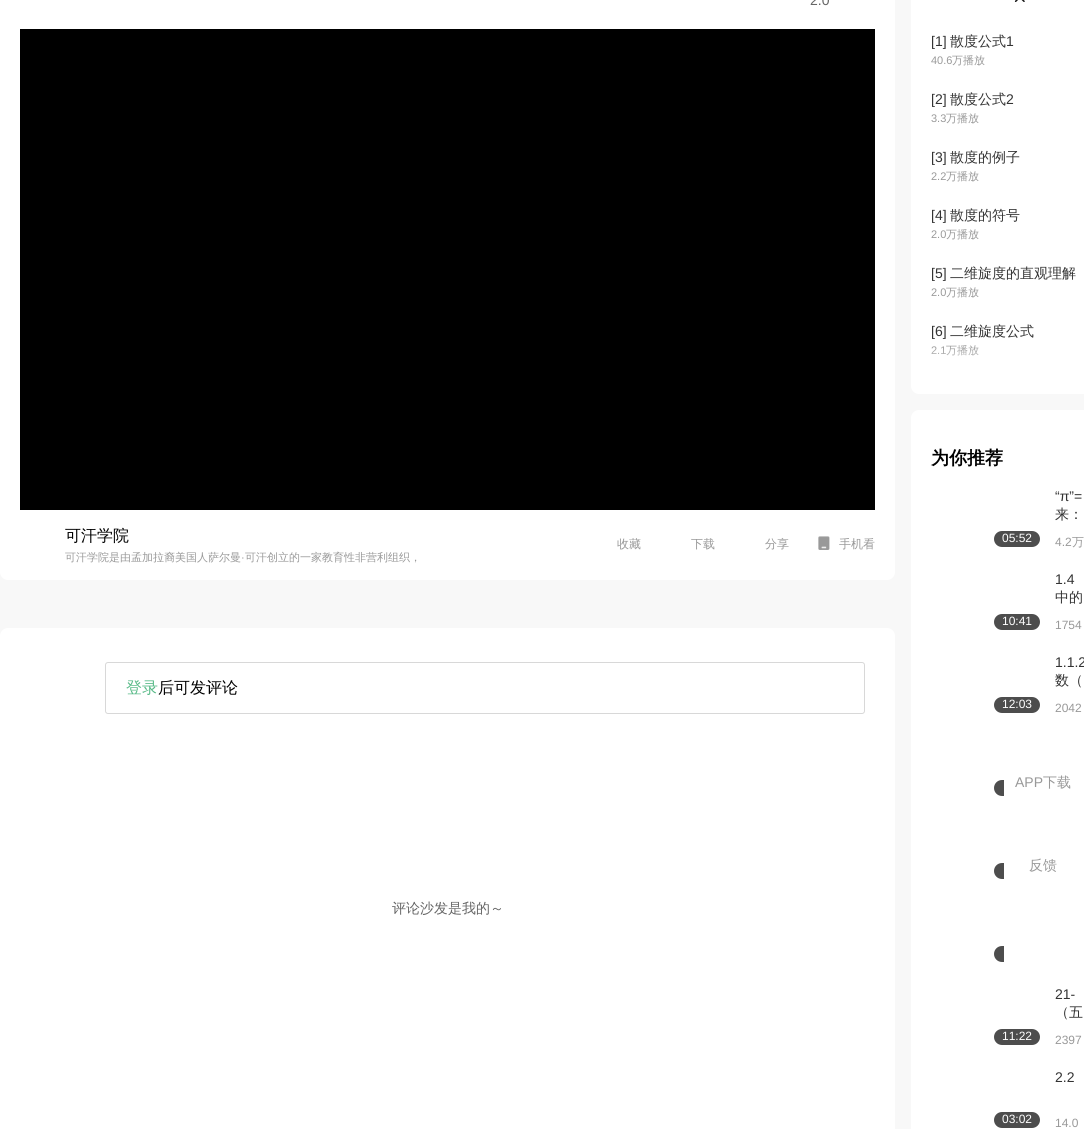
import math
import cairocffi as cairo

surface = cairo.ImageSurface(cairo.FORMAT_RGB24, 1084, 1129)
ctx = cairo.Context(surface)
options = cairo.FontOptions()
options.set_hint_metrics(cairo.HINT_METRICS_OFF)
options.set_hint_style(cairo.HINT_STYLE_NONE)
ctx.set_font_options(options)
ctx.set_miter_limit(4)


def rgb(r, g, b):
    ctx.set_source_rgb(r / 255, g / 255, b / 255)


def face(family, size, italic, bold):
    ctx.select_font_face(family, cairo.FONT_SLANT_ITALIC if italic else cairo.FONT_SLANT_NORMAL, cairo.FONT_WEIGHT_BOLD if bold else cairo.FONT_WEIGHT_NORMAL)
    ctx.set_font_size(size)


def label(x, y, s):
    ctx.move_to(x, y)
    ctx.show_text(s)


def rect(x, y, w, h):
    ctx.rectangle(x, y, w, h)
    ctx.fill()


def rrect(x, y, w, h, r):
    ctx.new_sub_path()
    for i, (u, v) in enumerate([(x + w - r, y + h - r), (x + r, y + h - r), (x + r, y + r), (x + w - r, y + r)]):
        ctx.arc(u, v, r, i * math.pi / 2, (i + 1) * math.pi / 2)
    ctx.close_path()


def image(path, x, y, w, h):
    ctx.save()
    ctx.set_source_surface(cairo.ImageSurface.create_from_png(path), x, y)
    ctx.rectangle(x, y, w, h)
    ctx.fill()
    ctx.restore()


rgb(248, 248, 248)
ctx.paint()
rgb(255, 255, 255)
rrect(0, -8, 895, 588, 8)
ctx.fill()
face('Liberation Sans', 14, 0, 0)
rgb(102, 102, 102)
label(810, 5, '2.0')
rgb(0, 0, 0)
rect(20, 29, 855, 481)
face('WenQuanYi Zen Hei Medium', 16, 0, 0)
label(65, 541, '可汗学院')
face('WenQuanYi Zen Hei Medium', 11, 0, 0)
rgb(153, 153, 153)
label(65, 561, '可汗学院是由孟加拉裔美国人萨尔曼')
face('Liberation Sans', 11, 0, 0)
label(241, 561, '·')
face('WenQuanYi Zen Hei Medium', 11, 0, 0)
label(245, 561, '可汗创立的一家教育性非营利组织，')
face('WenQuanYi Zen Hei Medium', 12, 0, 0)
label(617, 548, '收藏')
label(691, 548, '下载')
label(765, 548, '分享')
image('image0.png', 818, 536, 12, 14)
label(839, 548, '手机看')
rgb(255, 255, 255)
rrect(911, -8, 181, 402, 8)
ctx.fill()
image('image1.png', 1014, 0, 11, 2)
face('Liberation Sans', 14, 0, 0)
rgb(51, 51, 51)
label(931, 46, '[1]')
face('WenQuanYi Zen Hei Medium', 14, 0, 0)
label(950, 46, '散度公式')
face('Liberation Sans', 14, 0, 0)
label(1006, 46, '1')
face('Liberation Sans', 11, 0, 0)
rgb(153, 153, 153)
label(931, 64, '40.6')
face('WenQuanYi Zen Hei Medium', 11, 0, 0)
label(952, 64, '万播放')
face('Liberation Sans', 14, 0, 0)
rgb(51, 51, 51)
label(931, 104, '[2]')
face('WenQuanYi Zen Hei Medium', 14, 0, 0)
label(950, 104, '散度公式')
face('Liberation Sans', 14, 0, 0)
label(1006, 104, '2')
face('Liberation Sans', 11, 0, 0)
rgb(153, 153, 153)
label(931, 122, '3.3')
face('WenQuanYi Zen Hei Medium', 11, 0, 0)
label(946, 122, '万播放')
face('Liberation Sans', 14, 0, 0)
rgb(51, 51, 51)
label(931, 162, '[3]')
face('WenQuanYi Zen Hei Medium', 14, 0, 0)
label(950, 162, '散度的例子')
face('Liberation Sans', 11, 0, 0)
rgb(153, 153, 153)
label(931, 180, '2.2')
face('WenQuanYi Zen Hei Medium', 11, 0, 0)
label(946, 180, '万播放')
face('Liberation Sans', 14, 0, 0)
rgb(51, 51, 51)
label(931, 220, '[4]')
face('WenQuanYi Zen Hei Medium', 14, 0, 0)
label(950, 220, '散度的符号')
face('Liberation Sans', 11, 0, 0)
rgb(153, 153, 153)
label(931, 238, '2.0')
face('WenQuanYi Zen Hei Medium', 11, 0, 0)
label(946, 238, '万播放')
face('Liberation Sans', 14, 0, 0)
rgb(51, 51, 51)
label(931, 278, '[5]')
face('WenQuanYi Zen Hei Medium', 14, 0, 0)
label(950, 278, '二维旋度的直观理解')
face('Liberation Sans', 11, 0, 0)
rgb(153, 153, 153)
label(931, 296, '2.0')
face('WenQuanYi Zen Hei Medium', 11, 0, 0)
label(946, 296, '万播放')
face('Liberation Sans', 14, 0, 0)
rgb(51, 51, 51)
label(931, 336, '[6]')
face('WenQuanYi Zen Hei Medium', 14, 0, 0)
label(950, 336, '二维旋度公式')
face('Liberation Sans', 11, 0, 0)
rgb(153, 153, 153)
label(931, 354, '2.1')
face('WenQuanYi Zen Hei Medium', 11, 0, 0)
label(946, 354, '万播放')
gradient = cairo.LinearGradient(1056, 345, 1056, 381)
gradient.add_color_stop_rgba(0, 1, 1, 1, 0)
gradient.add_color_stop_rgba(1, 1, 1, 1, 1)
ctx.set_source(gradient)
rect(931, 346, 48, 10)
rgb(255, 255, 255)
rrect(911, 410, 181, 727, 8)
ctx.fill()
face('WenQuanYi Zen Hei', 18, 0, 1)
rgb(0, 0, 0)
label(931, 464, '为你推荐')
rgb(77, 77, 77)
rrect(994, 531, 46, 16, 8)
ctx.fill()
face('Liberation Sans', 12, 0, 0)
rgb(255, 255, 255)
label(1002, 542, '05:52')
face('Liberation Sans', 14, 0, 0)
rgb(51, 51, 51)
label(1055, 501, '“π”=')
face('WenQuanYi Zen Hei Medium', 14, 0, 0)
label(1055, 519, '来：')
face('Liberation Sans', 12, 0, 0)
rgb(153, 153, 153)
label(1055, 546, '4.2')
face('WenQuanYi Zen Hei Medium', 12, 0, 0)
label(1072, 546, '万')
rgb(77, 77, 77)
rrect(994, 614, 46, 16, 8)
ctx.fill()
face('Liberation Sans', 12, 0, 0)
rgb(255, 255, 255)
label(1002, 625, '10:41')
face('Liberation Sans', 14, 0, 0)
rgb(51, 51, 51)
label(1055, 584, '1.4')
face('WenQuanYi Zen Hei Medium', 14, 0, 0)
label(1055, 602, '中的')
face('Liberation Sans', 12, 0, 0)
rgb(153, 153, 153)
label(1055, 629, '1754')
rgb(77, 77, 77)
rrect(994, 697, 46, 16, 8)
ctx.fill()
rgb(255, 255, 255)
label(1002, 708, '12:03')
face('Liberation Sans', 14, 0, 0)
rgb(51, 51, 51)
label(1055, 667, '1.1.2')
face('WenQuanYi Zen Hei Medium', 14, 0, 0)
label(1055, 685, '数（')
face('Liberation Sans', 12, 0, 0)
rgb(153, 153, 153)
label(1055, 712, '2042')
rgb(77, 77, 77)
rrect(994, 780, 46, 16, 8)
ctx.fill()
rrect(994, 863, 46, 16, 8)
ctx.fill()
rrect(994, 946, 46, 16, 8)
ctx.fill()
rrect(994, 1029, 46, 16, 8)
ctx.fill()
rgb(255, 255, 255)
label(1002, 1040, '11:22')
face('Liberation Sans', 14, 0, 0)
rgb(51, 51, 51)
label(1055, 999, '21-')
face('WenQuanYi Zen Hei Medium', 14, 0, 0)
label(1055, 1017, '（五')
face('Liberation Sans', 12, 0, 0)
rgb(153, 153, 153)
label(1055, 1044, '2397')
rgb(77, 77, 77)
rrect(994, 1112, 46, 16, 8)
ctx.fill()
rgb(255, 255, 255)
label(1002, 1123, '03:02')
face('Liberation Sans', 14, 0, 0)
rgb(51, 51, 51)
label(1055, 1082, '2.2')
face('Liberation Sans', 12, 0, 0)
rgb(153, 153, 153)
label(1055, 1127, '14.0')
rgb(255, 255, 255)
rrect(0, 628, 895, 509, 8)
ctx.fill()
rrect(105.5, 662.5, 759, 51, 2.5)
rgb(216, 216, 216)
ctx.set_line_width(1)
ctx.stroke()
face('WenQuanYi Zen Hei Medium', 16, 0, 0)
rgb(86, 185, 134)
label(126, 693, '登录')
rgb(0, 0, 0)
label(158, 693, '后可发评论')
face('WenQuanYi Zen Hei Medium', 14, 0, 0)
rgb(102, 102, 102)
label(392, 913, '评论沙发是我的～')
rgb(255, 255, 255)
rect(1004, 780, 36, 16)
face('Liberation Sans', 14, 0, 0)
rgb(153, 153, 153)
label(1015, 787, 'APP')
face('WenQuanYi Zen Hei Medium', 14, 0, 0)
label(1043, 787, '下载')
rgb(255, 255, 255)
rect(1004, 863, 36, 16)
rgb(153, 153, 153)
label(1029, 870, '反馈')
rgb(255, 255, 255)
rect(1004, 946, 36, 16)
surface.write_to_png('render.png')
